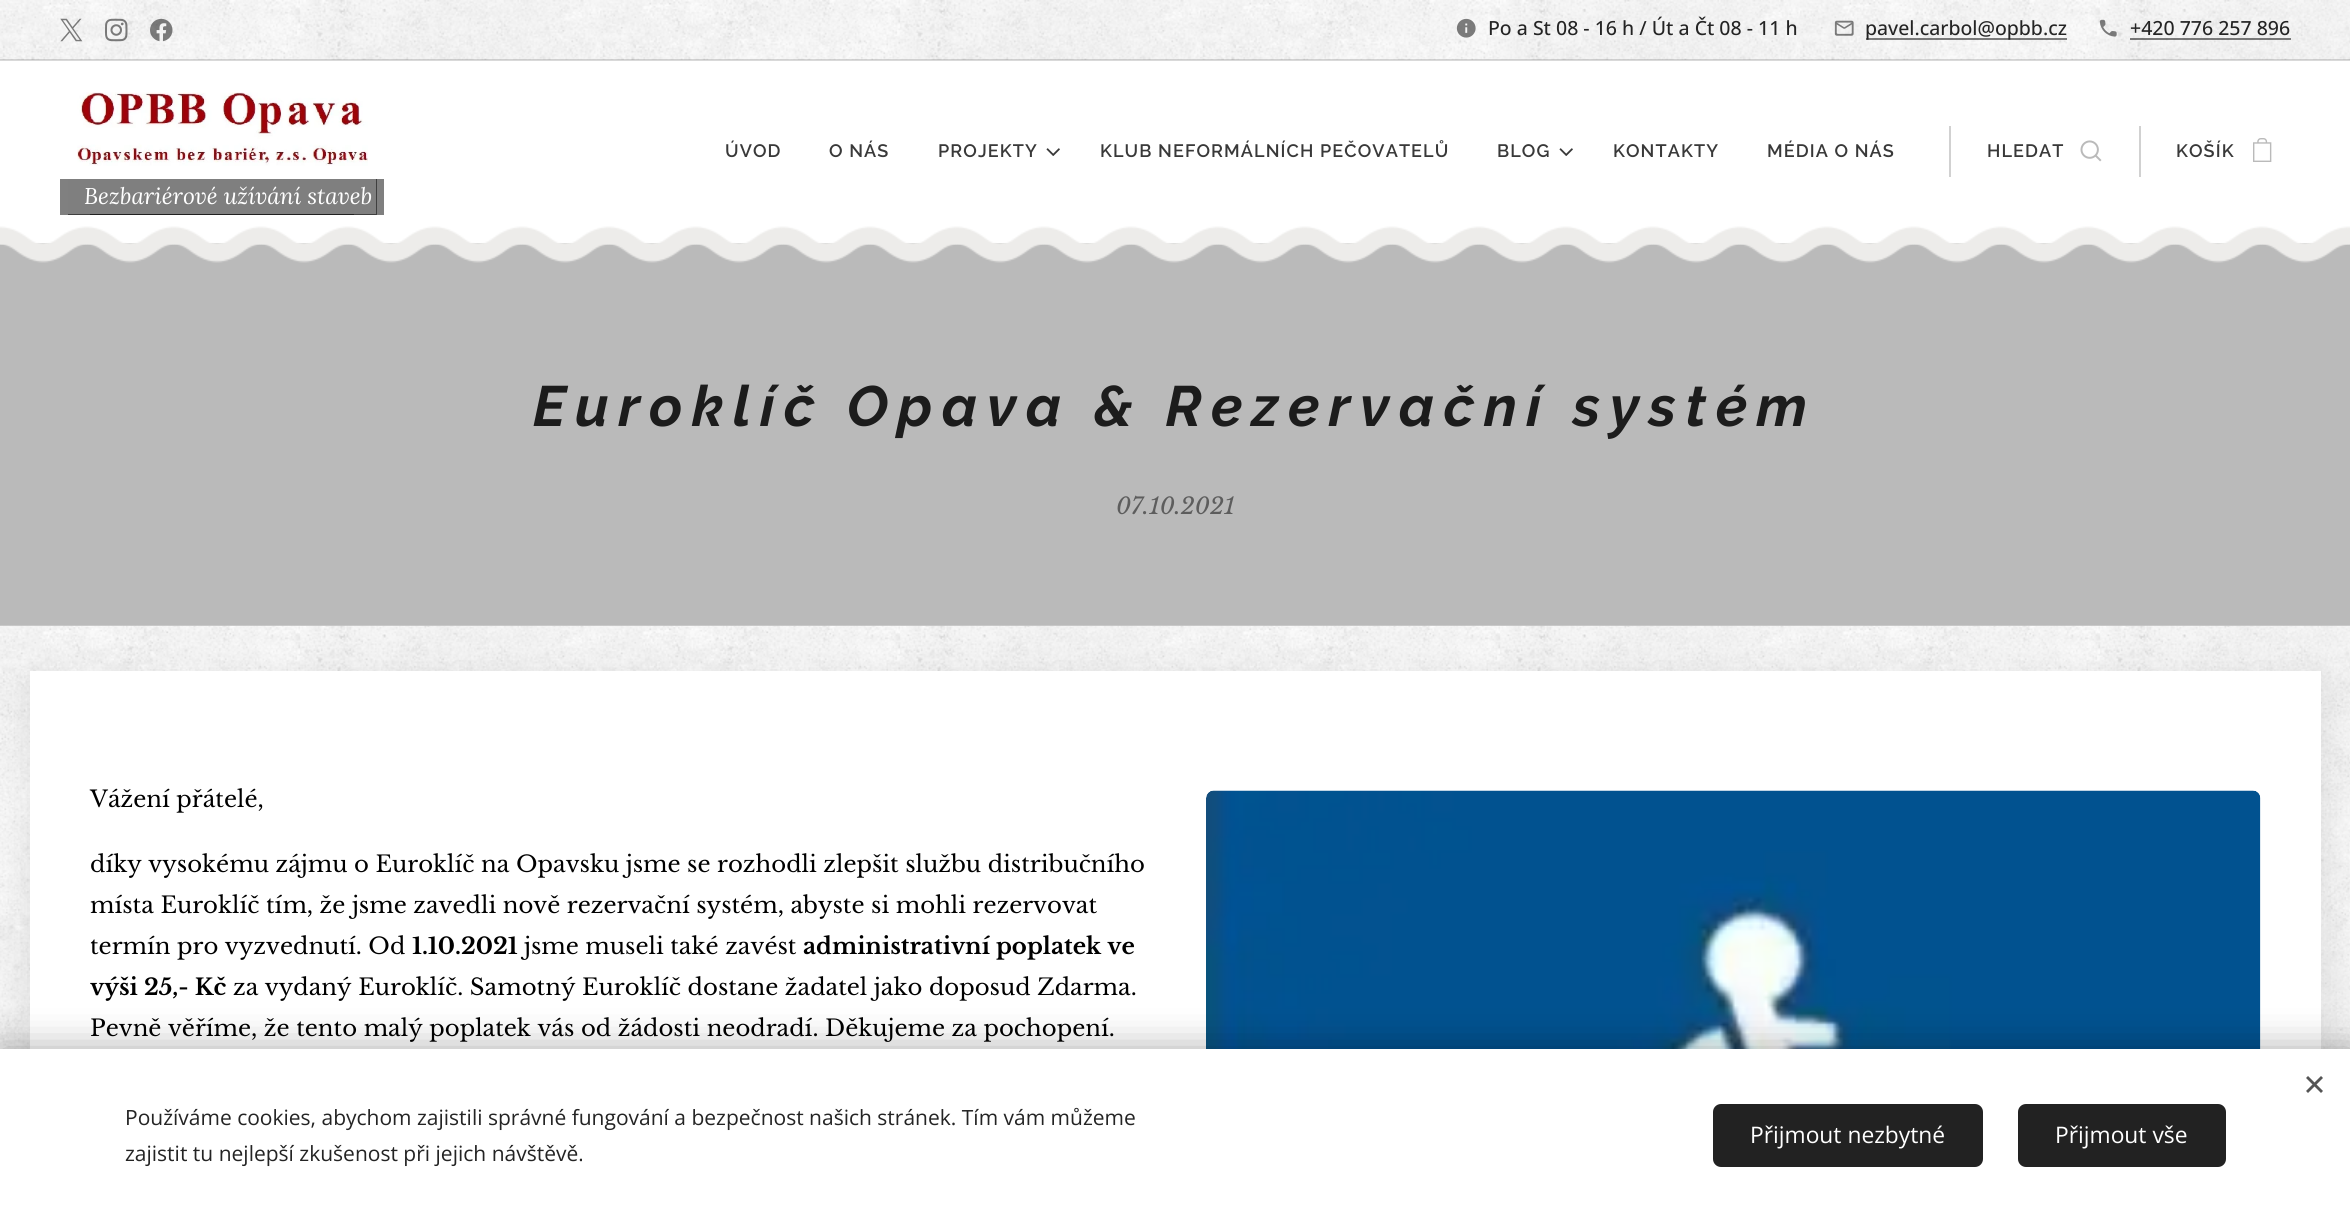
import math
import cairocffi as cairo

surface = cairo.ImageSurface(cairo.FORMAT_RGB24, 2350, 1222)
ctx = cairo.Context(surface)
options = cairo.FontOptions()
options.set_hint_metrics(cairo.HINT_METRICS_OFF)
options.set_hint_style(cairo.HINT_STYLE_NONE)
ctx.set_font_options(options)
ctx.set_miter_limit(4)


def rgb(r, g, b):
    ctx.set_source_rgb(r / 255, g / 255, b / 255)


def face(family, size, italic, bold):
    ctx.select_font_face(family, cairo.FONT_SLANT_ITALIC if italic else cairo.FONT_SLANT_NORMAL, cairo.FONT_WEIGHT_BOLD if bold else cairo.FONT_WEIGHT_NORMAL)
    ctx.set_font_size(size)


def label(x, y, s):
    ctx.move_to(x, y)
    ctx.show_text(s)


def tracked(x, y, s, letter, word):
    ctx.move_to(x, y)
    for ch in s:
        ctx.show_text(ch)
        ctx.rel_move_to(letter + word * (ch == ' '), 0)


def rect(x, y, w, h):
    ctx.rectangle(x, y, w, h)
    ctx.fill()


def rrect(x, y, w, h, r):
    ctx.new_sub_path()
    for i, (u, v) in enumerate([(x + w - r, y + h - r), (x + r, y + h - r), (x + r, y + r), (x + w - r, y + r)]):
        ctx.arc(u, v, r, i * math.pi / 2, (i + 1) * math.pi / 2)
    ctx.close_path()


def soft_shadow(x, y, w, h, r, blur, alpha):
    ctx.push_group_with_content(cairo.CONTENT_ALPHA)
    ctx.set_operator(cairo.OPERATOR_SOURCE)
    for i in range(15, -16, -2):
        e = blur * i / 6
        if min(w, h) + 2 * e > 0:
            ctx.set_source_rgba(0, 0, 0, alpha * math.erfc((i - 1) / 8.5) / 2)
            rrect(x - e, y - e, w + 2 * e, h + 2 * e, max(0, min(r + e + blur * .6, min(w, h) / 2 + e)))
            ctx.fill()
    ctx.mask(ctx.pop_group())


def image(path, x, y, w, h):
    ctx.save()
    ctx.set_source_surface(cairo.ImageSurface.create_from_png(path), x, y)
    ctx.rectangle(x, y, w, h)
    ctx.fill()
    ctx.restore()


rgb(255, 255, 255)
ctx.paint()
image('image0.png', 0, 0, 2350, 60)
image('image1.png', 60, 18, 23, 24)
image('image2.png', 105, 18, 23, 24)
image('image3.png', 150, 18, 23, 24)
image('image4.png', 1456, 18, 20, 20)
face('Open Sans Medium', 19.5, 0, 0)
rgb(36, 36, 36)
label(1488, 35, 'Po a St 08 - 16 h / Út a Čt 08 - 11 h')
image('image5.png', 1834, 20, 20, 16)
ctx.set_source_rgba(0, 0, 0, 0.5)
rect(1866, 38, 201, 2)
rgb(36, 36, 36)
label(1865, 35, 'pavel.carbol@opbb.cz')
image('image6.png', 2099, 19, 18, 18)
label(2130, 35, '+420 776 257 896')
ctx.set_source_rgba(0, 0, 0, 0.5)
rect(2130, 38, 161, 2)
ctx.set_source_rgba(0, 0, 0, 0.15)
rect(0, 59, 2350, 2)
face('Raleway SemiBold', 18, 0, 0)
rgb(57, 57, 57)
tracked(725, 157, 'ÚVOD', 1.1, 0)
tracked(829, 157, 'O NÁS', 1.1, 0)
tracked(938, 157, 'PROJEKTY', 1.1, 0)
image('image7.png', 1046, 148, 14, 8)
tracked(1100, 157, 'KLUB NEFORMÁLNÍCH PEČOVATELŮ', 1.1, 0)
tracked(1497, 157, 'BLOG', 1.1, 0)
image('image7.png', 1559, 148, 14, 8)
tracked(1613, 157, 'KONTAKTY', 1.1, 0)
tracked(1767, 157, 'MÉDIA O NÁS', 1.1, 0)
rgb(209, 209, 209)
rect(1949, 126, 2, 51)
rgb(57, 57, 57)
tracked(1987, 157, 'HLEDAT', 1.1, 0)
image('image8.png', 2080, 140, 22, 22)
rgb(209, 209, 209)
rect(2139, 126, 2, 51)
rgb(57, 57, 57)
tracked(2176, 157, 'KOŠÍK', 1.1, 0)
image('image9.png', 2253, 138, 19, 24)
image('image10.png', 77, 92, 291, 74)
ctx.save()
ctx.rectangle(60, 179, 324, 36)
ctx.clip()
rgb(128, 128, 128)
ctx.new_path()
ctx.move_to(45, 179)
ctx.line_to(45, 215)
ctx.line_to(354, 215)
ctx.line_to(354, 214)
ctx.line_to(68, 214)
ctx.line_to(68, 179)
ctx.close_path()
ctx.fill()
ctx.set_source_rgba(0, 0, 0, 0.5)
ctx.new_path()
ctx.move_to(90, 214)
ctx.line_to(90, 215)
ctx.line_to(399, 215)
ctx.line_to(399, 179)
ctx.line_to(376, 179)
ctx.line_to(376, 214)
ctx.close_path()
ctx.fill()
ctx.restore()
ctx.set_source_rgba(0, 0, 0, 0.5)
rect(68, 179, 309, 36)
face('Lora', 22.8, 1, 0)
rgb(255, 255, 255)
label(84, 204, 'Bezbariérové užívání staveb')
rgb(186, 186, 186)
rect(0, 243, 2350, 383)
image('image12.png', 0, 243, 2350, 20)
image('image11.png', 0, 226, 2350, 19)
face('Raleway', 56.7, 1, 1)
rgb(28, 28, 28)
tracked(533, 426, 'Euroklíč Opava & Rezervační systém', 9.45, 0)
face('Libre Baskerville', 22.8, 1, 0)
rgb(93, 93, 93)
label(1116, 514, '07.10.2021')
image('image13.png', 0, 625, 2350, 424)
rgb(0, 0, 0)
soft_shadow(30, 683, 2291, 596, 0, 19, 0.1)
rgb(255, 255, 255)
rect(30, 671, 2291, 378)
face('Libre Baskerville', 22.8, 0, 0)
rgb(0, 0, 0)
label(90, 807, 'Vážení přátelé,')
label(90, 872, 'díky vysokému zájmu o Euroklíč na Opavsku jsme se rozhodli zlepšit službu distribučního')
label(90, 913, 'místa Euroklíč tím, že jsme zavedli nově rezervační systém, abyste si mohli rezervovat')
label(90, 954, 'termín pro vyzvednutí. Od')
face('Libre Baskerville', 22.8, 0, 1)
label(412, 954, '1.10.2021')
face('Libre Baskerville', 22.8, 0, 0)
label(524, 954, 'jsme museli také zavést')
face('Libre Baskerville', 22.8, 0, 1)
label(803, 954, 'administrativní poplatek ve')
label(90, 995, 'výši 25,- Kč')
face('Libre Baskerville', 22.8, 0, 0)
label(233, 995, 'za vydaný Euroklíč. Samotný Euroklíč dostane žadatel jako doposud Zdarma.')
label(90, 1036, 'Pevně věříme, že tento malý poplatek vás od žádosti neodradí. Děkujeme za pochopení.')
image('image14.png', 1206, 790, 1055, 259)
rgb(0, 0, 0)
soft_shadow(0, 1049, 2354, 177, 0, 19, 0.33)
rgb(255, 255, 255)
rect(0, 1049, 2350, 173)
rgb(85, 85, 85)
ctx.new_path()
ctx.move_to(2306, 1091)
ctx.line_to(2321, 1076)
ctx.line_to(2323, 1078)
ctx.line_to(2308, 1093)
ctx.close_path()
ctx.fill()
ctx.new_path()
ctx.move_to(2308, 1076)
ctx.line_to(2323, 1091)
ctx.line_to(2321, 1093)
ctx.line_to(2306, 1078)
ctx.close_path()
ctx.fill()
face('Open Sans', 21, 0, 0)
rgb(36, 36, 36)
label(125, 1125, 'Používáme cookies, abychom zajistili správné fungování a bezpečnost našich stránek. Tím vám můžeme')
label(125, 1161, 'zajistit tu nejlepší zkušenost při jejich návštěvě.')
rgb(34, 34, 34)
rrect(1713, 1104, 270, 63, 8)
ctx.fill()
face('Open Sans', 22.8, 0, 0)
rgb(255, 255, 255)
label(1750, 1143, 'Přijmout nezbytné')
rgb(34, 34, 34)
rrect(2018, 1104, 208, 63, 8)
ctx.fill()
rgb(255, 255, 255)
label(2055, 1143, 'Přijmout vše')
surface.write_to_png('render.png')
